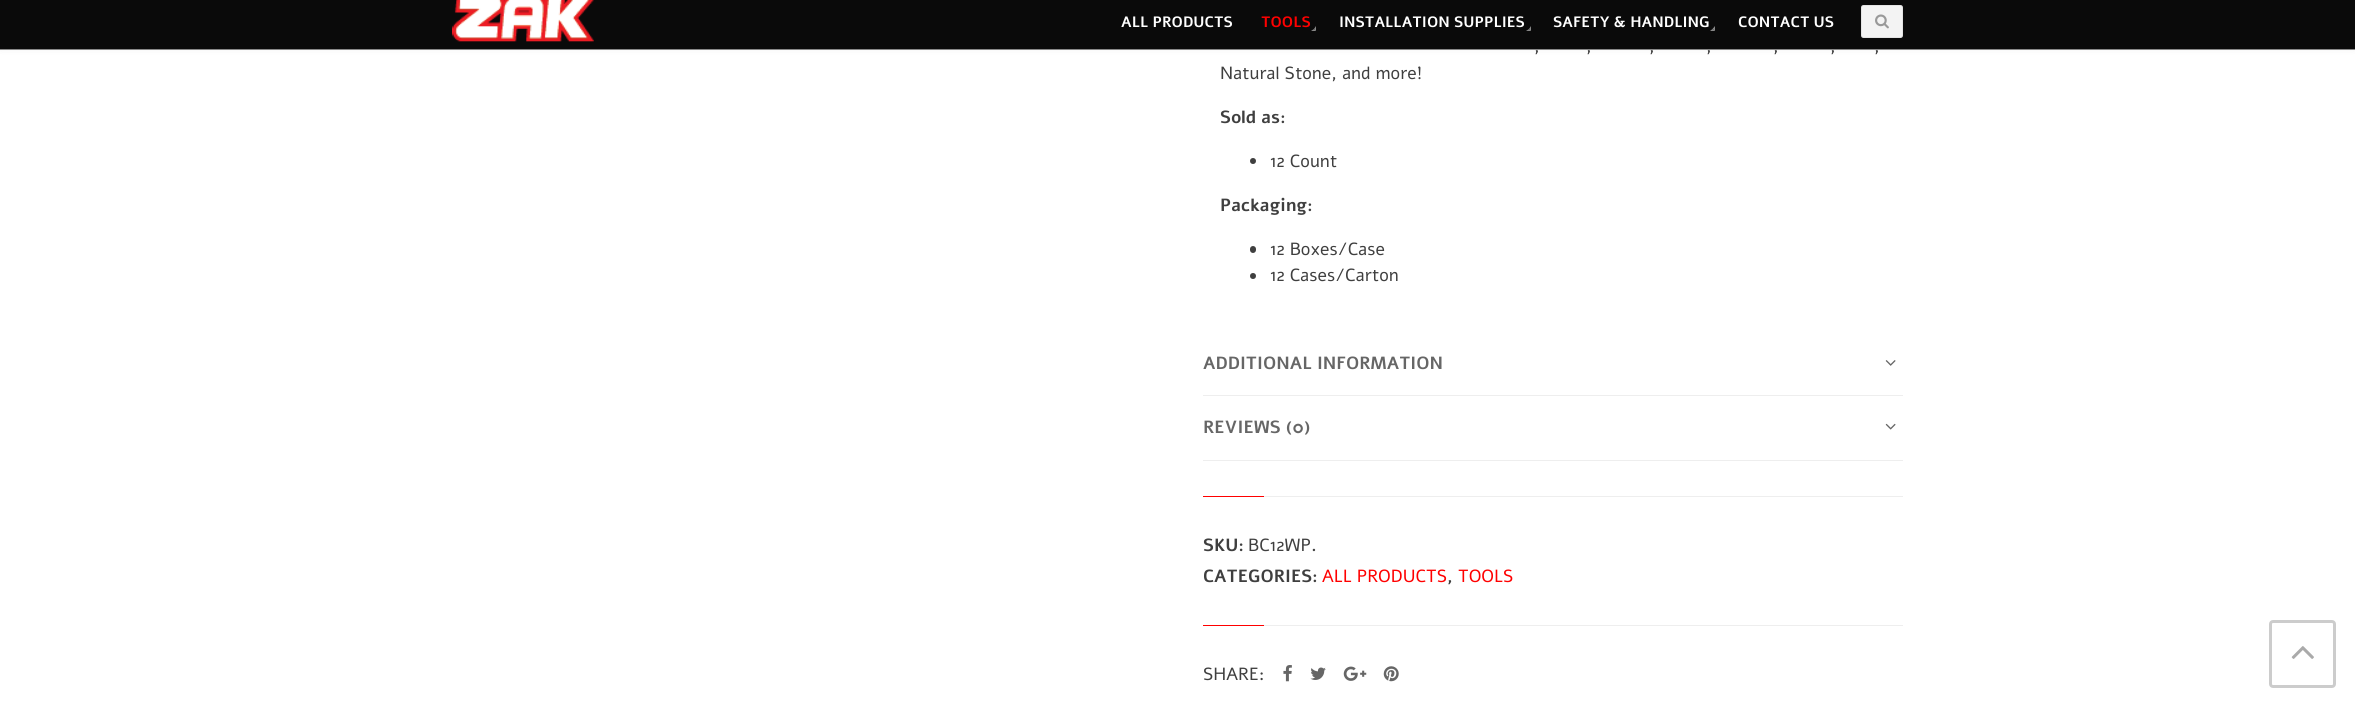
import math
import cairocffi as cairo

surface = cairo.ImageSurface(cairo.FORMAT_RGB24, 2355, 706)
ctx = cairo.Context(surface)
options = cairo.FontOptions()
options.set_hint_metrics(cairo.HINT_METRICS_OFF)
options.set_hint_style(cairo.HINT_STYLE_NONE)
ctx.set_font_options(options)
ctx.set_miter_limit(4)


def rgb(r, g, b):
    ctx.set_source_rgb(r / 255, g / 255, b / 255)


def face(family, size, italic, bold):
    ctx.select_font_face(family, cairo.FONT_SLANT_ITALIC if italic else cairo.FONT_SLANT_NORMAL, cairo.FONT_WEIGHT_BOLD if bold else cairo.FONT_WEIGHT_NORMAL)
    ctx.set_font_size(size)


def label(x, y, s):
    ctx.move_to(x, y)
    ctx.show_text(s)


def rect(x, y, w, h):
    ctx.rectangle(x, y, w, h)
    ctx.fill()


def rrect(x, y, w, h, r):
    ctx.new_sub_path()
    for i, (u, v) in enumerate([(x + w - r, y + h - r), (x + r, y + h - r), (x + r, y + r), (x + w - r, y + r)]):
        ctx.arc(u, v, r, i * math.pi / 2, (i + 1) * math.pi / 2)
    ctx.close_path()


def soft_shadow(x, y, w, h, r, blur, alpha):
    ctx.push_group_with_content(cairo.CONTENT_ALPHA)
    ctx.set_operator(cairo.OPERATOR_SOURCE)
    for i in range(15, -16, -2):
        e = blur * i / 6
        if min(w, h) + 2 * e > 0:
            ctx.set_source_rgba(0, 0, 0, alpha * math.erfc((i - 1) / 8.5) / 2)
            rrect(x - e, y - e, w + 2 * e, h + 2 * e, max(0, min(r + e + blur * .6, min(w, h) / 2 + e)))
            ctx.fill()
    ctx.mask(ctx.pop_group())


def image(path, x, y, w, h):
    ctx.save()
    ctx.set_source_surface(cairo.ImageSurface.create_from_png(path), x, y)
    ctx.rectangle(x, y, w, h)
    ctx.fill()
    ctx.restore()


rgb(255, 255, 255)
ctx.paint()
rgb(0, 0, 0)
soft_shadow(0, -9, 2355, 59, 0, 3, 0.05)
rgb(10, 10, 10)
rect(0, 0, 2355, 49)
rgb(137, 137, 137)
rect(0, 49, 2355, 1)
image('image0.png', 452, 0, 142, 42)
face('Alef', 15, 0, 1)
rgb(255, 255, 255)
label(1121, 27, 'ALL PRODUCTS')
rgb(255, 0, 0)
label(1261, 27, 'TOOLS')
rgb(137, 137, 137)
ctx.new_path()
ctx.move_to(1316, 26)
ctx.line_to(1316, 31)
ctx.line_to(1314, 29)
ctx.close_path()
ctx.fill()
ctx.new_path()
ctx.move_to(1316, 31)
ctx.line_to(1311, 31)
ctx.line_to(1314, 29)
ctx.close_path()
ctx.fill()
rgb(255, 255, 255)
label(1339, 27, 'INSTALLATION SUPPLIES')
rgb(137, 137, 137)
ctx.new_path()
ctx.move_to(1531, 26)
ctx.line_to(1531, 31)
ctx.line_to(1529, 29)
ctx.close_path()
ctx.fill()
ctx.new_path()
ctx.move_to(1531, 31)
ctx.line_to(1526, 31)
ctx.line_to(1529, 29)
ctx.close_path()
ctx.fill()
rgb(255, 255, 255)
label(1553, 27, 'SAFETY & HANDLING')
rgb(137, 137, 137)
ctx.new_path()
ctx.move_to(1715, 26)
ctx.line_to(1715, 31)
ctx.line_to(1712.5, 29)
ctx.close_path()
ctx.fill()
ctx.new_path()
ctx.move_to(1715, 31)
ctx.line_to(1710, 31)
ctx.line_to(1712.5, 29)
ctx.close_path()
ctx.fill()
rgb(255, 255, 255)
label(1738, 27, 'CONTACT US')
rgb(243, 243, 243)
rrect(1861, 5, 42, 33, 2.5)
ctx.fill()
rrect(1861.5, 5.5, 41, 32, 2)
ctx.set_source_rgba(0, 0, 0, 0.07)
ctx.set_line_width(1)
ctx.stroke()
image('image1.png', 1875, 14, 14, 15)
face('Alef', 17.6, 0, 0)
rgb(63, 63, 63)
label(1534, 52, ',')
label(1586, 52, ',')
label(1649, 52, ',')
label(1706, 52, ',')
label(1773, 52, ',')
label(1830, 52, ',')
label(1874, 52, ',')
label(1220, 79, 'Natural Stone, and more!')
face('Alef', 17.6, 0, 1)
label(1220, 123, 'Sold as:')
ctx.new_path()
ctx.arc(1253, 161, 3, 0, 2 * math.pi)
ctx.fill()
face('Alef', 17.6, 0, 0)
label(1270, 167, '12 Count')
face('Alef', 17.6, 0, 1)
label(1220, 211, 'Packaging:')
rrect(1250, 246, 6, 7, 3)
ctx.fill()
face('Alef', 17.6, 0, 0)
label(1270, 255, '12 Boxes/Case')
ctx.new_path()
ctx.arc(1253, 276, 3, 0, 2 * math.pi)
ctx.fill()
label(1270, 281, '12 Cases/Carton')
rgb(238, 238, 238)
rect(1203, 395, 700, 1)
face('Alef', 17.6, 0, 1)
rgb(102, 102, 102)
label(1203, 369, 'ADDITIONAL INFORMATION')
image('image2.png', 1885, 360, 11, 6)
rgb(238, 238, 238)
rect(1203, 460, 700, 1)
rgb(102, 102, 102)
label(1203, 433, 'REVIEWS (0)')
image('image3.png', 1885, 423, 11, 7)
rgb(238, 238, 238)
rect(1264, 496, 639, 1)
rgb(255, 0, 0)
rect(1203, 496, 61, 1)
rgb(63, 63, 63)
label(1203, 551, 'SKU:')
face('Alef', 17.6, 0, 0)
label(1248, 551, 'BC12WP')
face('Alef', 17.6, 0, 1)
label(1311, 551, '.')
label(1203, 582, 'CATEGORIES:')
face('Alef', 17.6, 0, 0)
rgb(255, 0, 0)
label(1322, 582, 'ALL PRODUCTS')
face('Alef', 17.6, 0, 1)
rgb(63, 63, 63)
label(1447, 582, ',')
face('Alef', 17.6, 0, 0)
rgb(255, 0, 0)
label(1458, 582, 'TOOLS')
rgb(238, 238, 238)
rect(1264, 625, 639, 1)
rgb(255, 0, 0)
rect(1203, 625, 61, 1)
rgb(63, 63, 63)
label(1203, 680, 'SHARE:')
image('image4.png', 1283, 665, 9, 17)
image('image5.png', 1310, 667, 16, 13)
image('image6.png', 1343, 666, 24, 15)
image('image7.png', 1383, 666, 16, 16)
rrect(2270.5, 621.5, 64, 65, 2.5)
rgb(204, 204, 204)
ctx.set_line_width(3)
ctx.stroke()
image('image8.png', 2291, 646, 23, 13)
surface.write_to_png('render.png')
